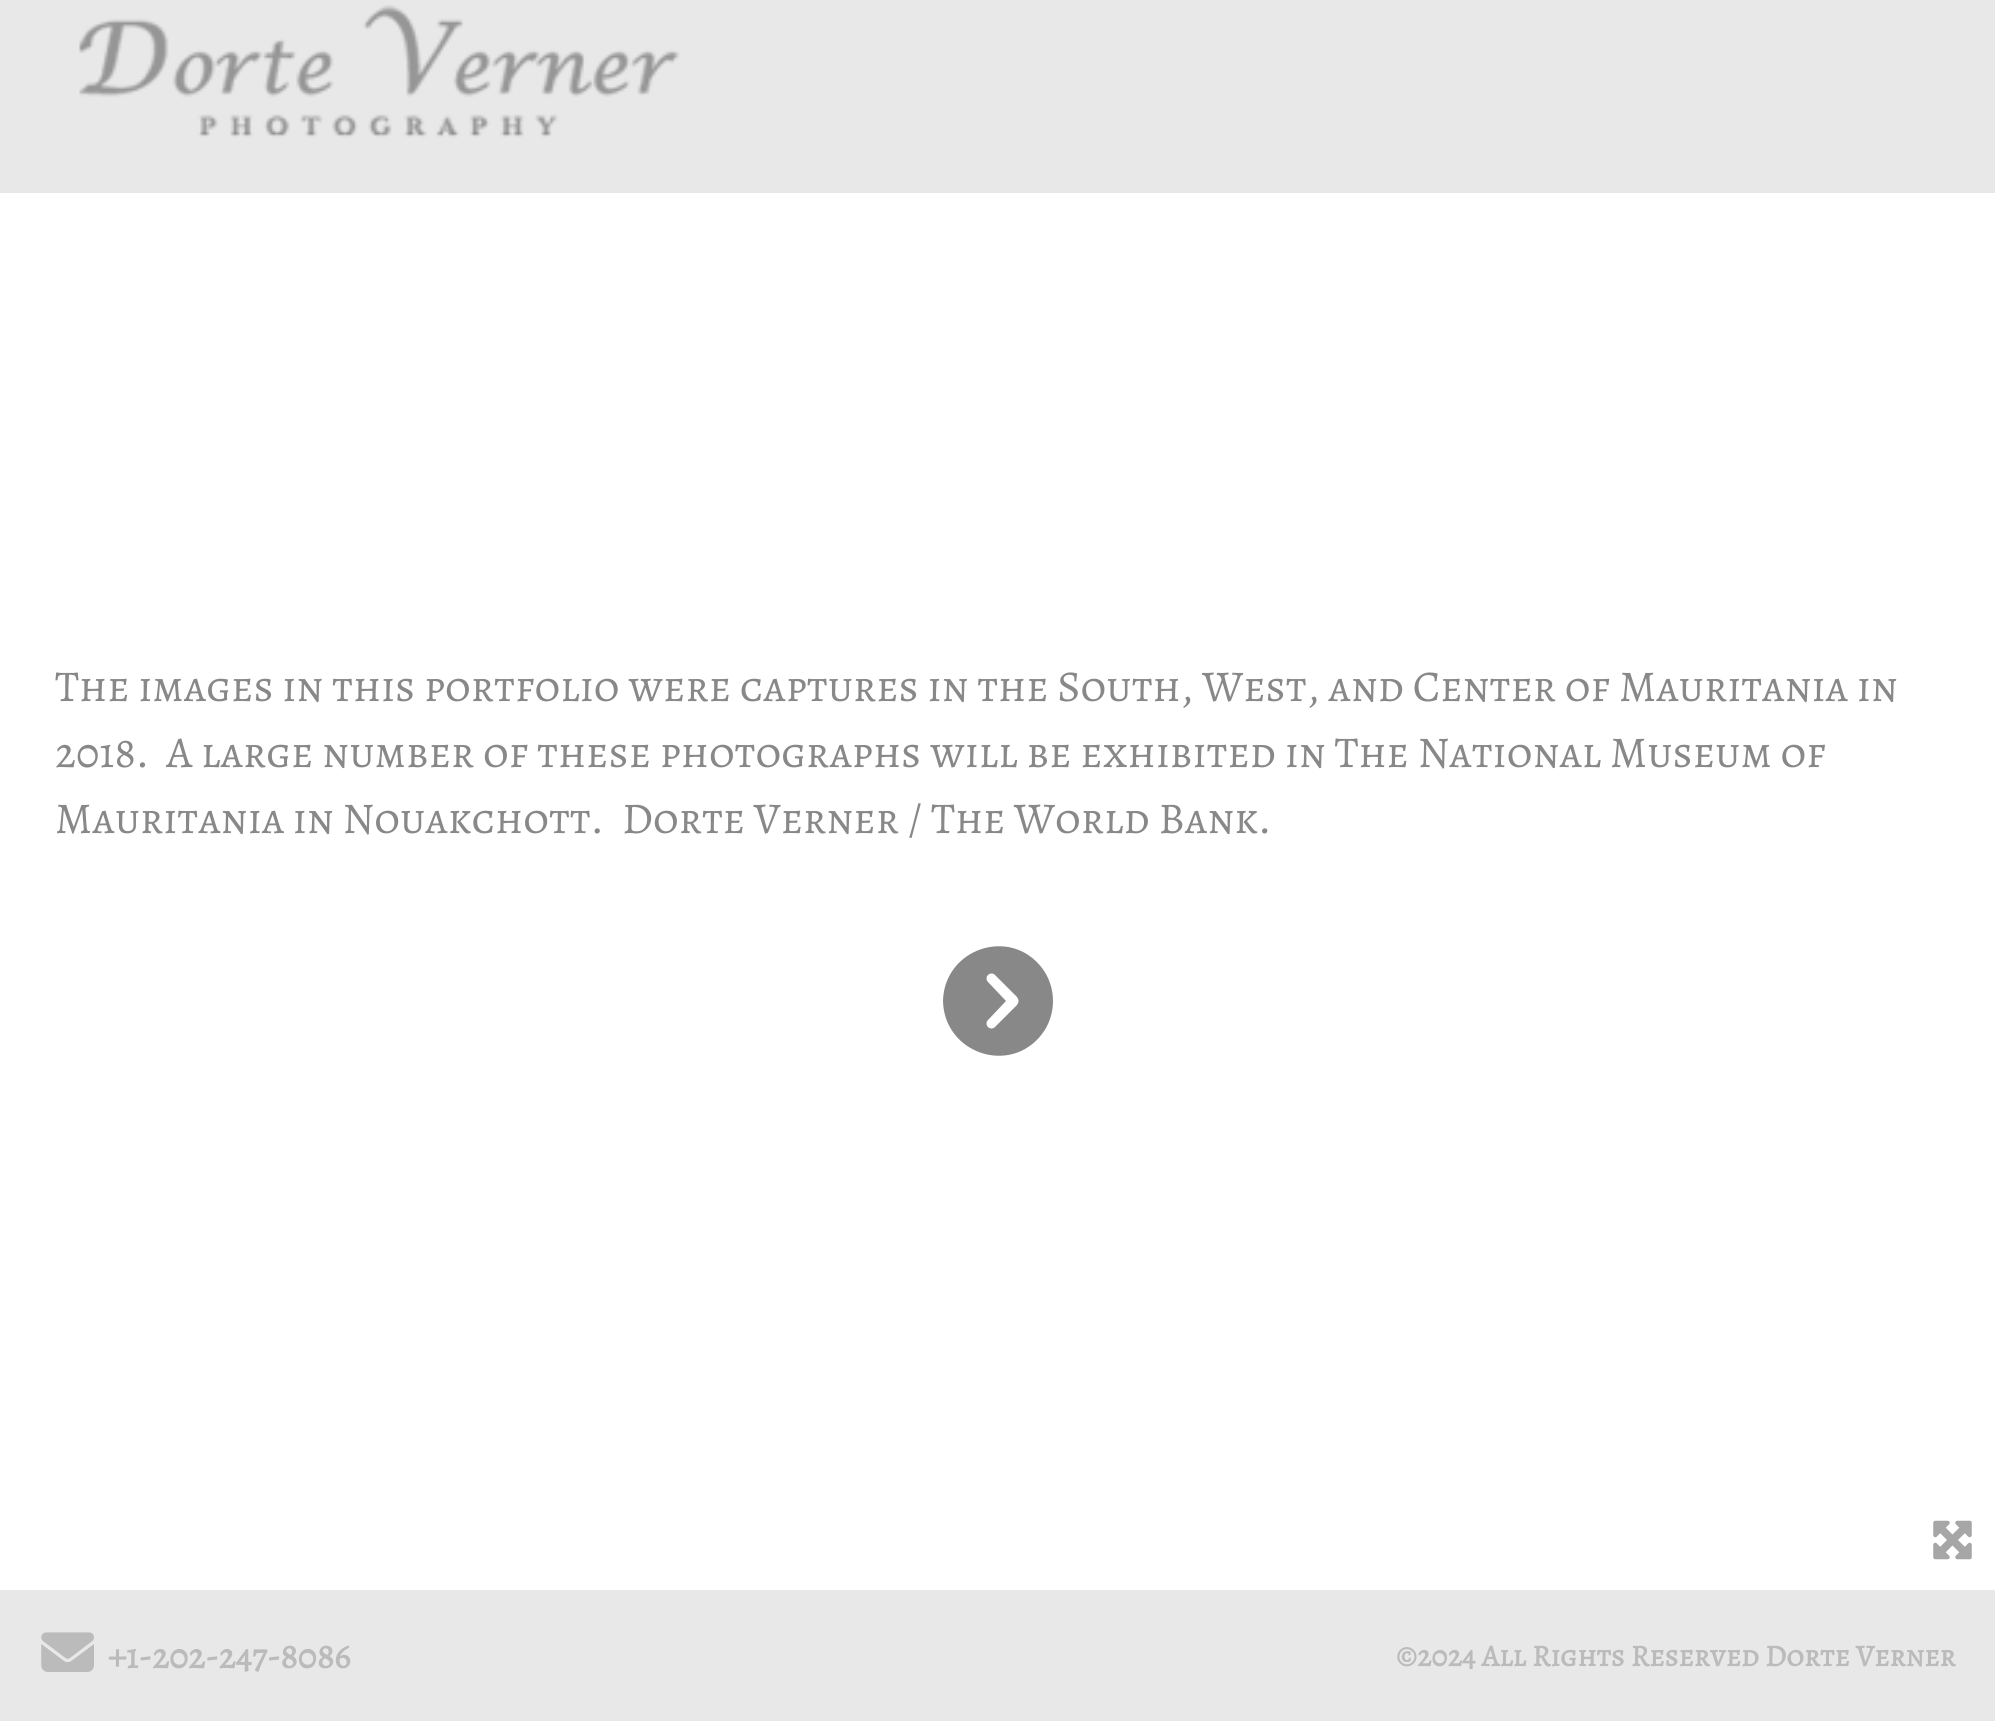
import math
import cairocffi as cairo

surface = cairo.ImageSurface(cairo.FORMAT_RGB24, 1995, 1721)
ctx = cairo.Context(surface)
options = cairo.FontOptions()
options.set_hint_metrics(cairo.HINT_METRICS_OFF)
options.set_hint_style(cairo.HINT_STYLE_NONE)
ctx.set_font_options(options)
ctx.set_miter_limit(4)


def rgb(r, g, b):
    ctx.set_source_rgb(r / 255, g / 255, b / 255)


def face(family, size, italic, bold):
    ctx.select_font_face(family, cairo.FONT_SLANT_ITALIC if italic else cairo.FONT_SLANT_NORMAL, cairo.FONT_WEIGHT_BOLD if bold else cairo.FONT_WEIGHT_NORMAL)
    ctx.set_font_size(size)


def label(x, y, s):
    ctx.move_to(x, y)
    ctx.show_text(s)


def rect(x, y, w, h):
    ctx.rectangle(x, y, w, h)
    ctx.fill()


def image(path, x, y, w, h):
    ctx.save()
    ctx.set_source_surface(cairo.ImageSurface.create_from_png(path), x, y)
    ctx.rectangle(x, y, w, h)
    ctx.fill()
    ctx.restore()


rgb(232, 232, 232)
ctx.paint()
image('image0.png', 79, 5, 601, 133)
rgb(255, 255, 255)
rect(0, 193, 1995, 1397)
image('image1.png', 1933, 1520, 39, 40)
face('Alegreya SC', 44, 0, 0)
rgb(136, 136, 136)
label(55, 701, 'The images in this portfolio were captures in the South, West, and Center of Mauritania in')
label(55, 767, '2018.  A large number of these photographs will be exhibited in The National Museum of')
label(55, 833, 'Mauritania in Nouakchott.')
label(622, 833, 'Dorte Verner / The World Bank.')
ctx.new_path()
ctx.move_to(943, 1001)
ctx.curve_to(944, 1053, 1010, 1076, 1042, 1034)
ctx.curve_to(1049, 1025, 1053, 1013, 1053, 1001)
ctx.curve_to(1053, 989, 1049, 977, 1042, 968)
ctx.curve_to(1010, 926, 944, 949, 943, 1001)
ctx.close_path()
ctx.move_to(995, 1027)
ctx.curve_to(993, 1029, 990, 1029, 988, 1027)
ctx.curve_to(986, 1025, 986, 1022, 988, 1020)
ctx.line_to(1006, 1001)
ctx.line_to(988, 982)
ctx.curve_to(986, 980, 986, 977, 988, 975)
ctx.curve_to(990, 973, 993, 973, 995, 975)
ctx.line_to(1017, 997)
ctx.curve_to(1019, 1000, 1019, 1002, 1017, 1005)
ctx.close_path()
ctx.fill()
image('image2.png', 41, 1632, 53, 40)
face('Alegreya SC', 35.75, 0, 1)
rgb(187, 187, 187)
label(108, 1668, '+1-202-247-8086')
face('Alegreya SC', 30.25, 0, 1)
label(1396, 1666, '©2024 All Rights Reserved Dorte Verner')
surface.write_to_png('render.png')
